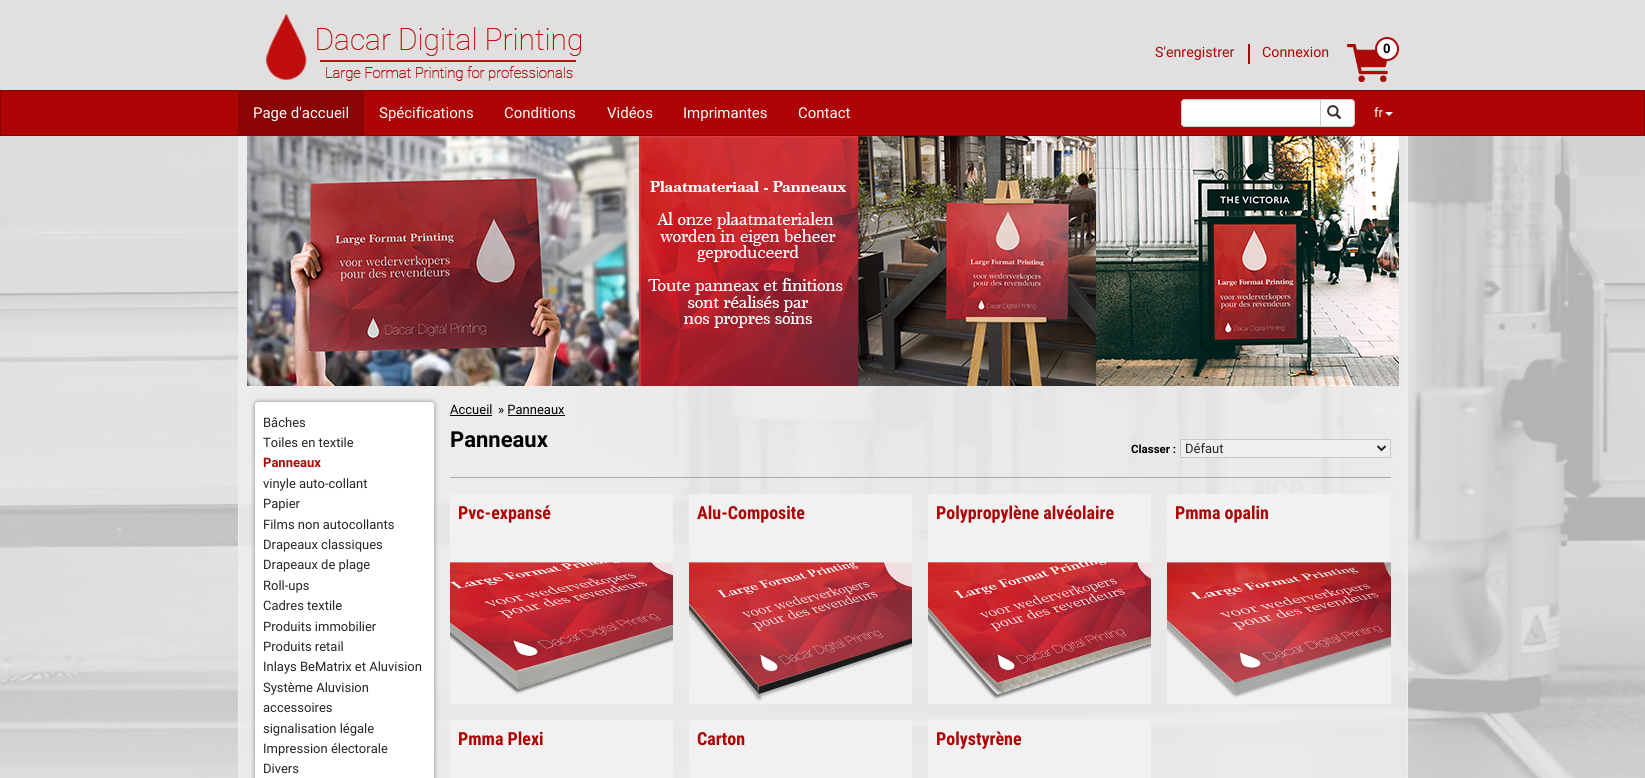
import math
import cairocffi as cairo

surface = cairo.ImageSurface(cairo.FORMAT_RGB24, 1645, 778)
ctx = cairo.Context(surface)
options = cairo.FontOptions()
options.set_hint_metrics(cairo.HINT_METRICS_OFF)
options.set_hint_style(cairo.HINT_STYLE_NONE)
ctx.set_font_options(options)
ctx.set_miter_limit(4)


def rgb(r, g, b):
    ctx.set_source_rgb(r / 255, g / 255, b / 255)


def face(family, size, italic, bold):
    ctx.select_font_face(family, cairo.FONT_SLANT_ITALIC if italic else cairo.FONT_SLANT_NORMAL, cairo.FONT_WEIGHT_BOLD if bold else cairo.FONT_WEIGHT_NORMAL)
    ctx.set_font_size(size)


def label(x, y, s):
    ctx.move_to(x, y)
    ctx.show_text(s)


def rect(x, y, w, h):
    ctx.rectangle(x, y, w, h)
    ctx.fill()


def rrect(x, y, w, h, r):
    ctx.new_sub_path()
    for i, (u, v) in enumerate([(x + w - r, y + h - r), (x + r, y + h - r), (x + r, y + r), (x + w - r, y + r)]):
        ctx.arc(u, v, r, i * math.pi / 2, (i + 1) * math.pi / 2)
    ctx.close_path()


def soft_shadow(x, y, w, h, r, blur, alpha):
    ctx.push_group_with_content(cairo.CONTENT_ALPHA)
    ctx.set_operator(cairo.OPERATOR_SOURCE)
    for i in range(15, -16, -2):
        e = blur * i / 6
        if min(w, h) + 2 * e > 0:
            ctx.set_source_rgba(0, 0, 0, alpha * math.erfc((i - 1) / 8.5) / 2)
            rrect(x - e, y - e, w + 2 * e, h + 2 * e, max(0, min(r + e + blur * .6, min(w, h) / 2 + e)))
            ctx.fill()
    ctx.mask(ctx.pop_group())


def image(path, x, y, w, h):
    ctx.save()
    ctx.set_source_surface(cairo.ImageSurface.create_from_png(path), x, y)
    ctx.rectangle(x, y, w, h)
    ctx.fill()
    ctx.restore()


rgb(224, 224, 224)
ctx.paint()
image('image0.png', 266, 13, 315, 68)
face('Roboto', 14.25, 0, 0)
rgb(173, 5, 5)
label(1155, 57, 'S\'enregistrer')
rect(1248, 44, 2, 20)
label(1262, 57, 'Connexion')
image('image1.png', 1347, 44, 41, 38)
rgb(255, 255, 255)
ctx.arc(1387, 49, 11, 0, 2 * math.pi)
ctx.fill_preserve()
rgb(173, 5, 5)
ctx.stroke()
face('Roboto', 13, 0, 1)
rgb(0, 0, 0)
label(1383, 53, '0')
rgb(173, 5, 5)
ctx.rectangle(0.5, 90.5, 1644, 45)
ctx.fill_preserve()
rgb(138, 4, 4)
ctx.set_line_width(1)
ctx.stroke()
rect(238, 91, 126, 44)
face('Roboto', 15, 0, 0)
rgb(255, 255, 255)
label(253, 118, 'Page d\'accueil')
label(379, 118, 'Spécifications')
label(504, 118, 'Conditions')
label(607, 118, 'Vidéos')
label(683, 118, 'Imprimantes')
label(798, 118, 'Contact')
ctx.new_path()
ctx.move_to(1185, 99)
ctx.line_to(1321, 99)
ctx.line_to(1321, 127)
ctx.line_to(1185, 127)
ctx.curve_to(1183, 127, 1181, 125, 1181, 123)
ctx.line_to(1181, 103)
ctx.curve_to(1181, 101, 1183, 99, 1185, 99)
ctx.close_path()
ctx.fill()
rgb(236, 236, 236)
ctx.new_path()
ctx.move_to(1185, 101)
ctx.line_to(1320, 101)
ctx.line_to(1320, 100)
ctx.line_to(1185, 100)
ctx.curve_to(1183, 100, 1182, 102, 1182, 104)
ctx.curve_to(1182, 102, 1183, 101, 1185, 101)
ctx.close_path()
ctx.fill()
ctx.new_path()
ctx.move_to(1185, 99.5)
ctx.line_to(1320.5, 99.5)
ctx.line_to(1320.5, 126.5)
ctx.line_to(1185, 126.5)
ctx.curve_to(1183, 126.5, 1181.5, 125, 1181.5, 123)
ctx.line_to(1181.5, 103)
ctx.curve_to(1181.5, 101, 1183, 99.5, 1185, 99.5)
ctx.close_path()
rgb(204, 204, 204)
ctx.stroke()
rgb(255, 255, 255)
ctx.new_path()
ctx.move_to(1320.5, 99.5)
ctx.line_to(1351, 99.5)
ctx.curve_to(1353, 99.5, 1354.5, 101, 1354.5, 103)
ctx.line_to(1354.5, 123)
ctx.curve_to(1354.5, 125, 1353, 126.5, 1351, 126.5)
ctx.line_to(1320.5, 126.5)
ctx.close_path()
ctx.fill_preserve()
rgb(204, 204, 204)
ctx.stroke()
image('image2.png', 1327, 105, 15, 14)
face('Roboto', 13, 0, 0)
rgb(255, 255, 255)
label(1374, 117, 'fr')
ctx.new_path()
ctx.move_to(1385, 112)
ctx.line_to(1393, 112)
ctx.line_to(1389, 116)
ctx.close_path()
ctx.fill()
image('image3.png', 0, 136, 1645, 642)
ctx.set_source_rgba(0.933, 0.933, 0.933, 0.8)
rect(239, 136, 1168, 642)
rgb(238, 238, 238)
ctx.set_fill_rule(cairo.FILL_RULE_EVEN_ODD)
ctx.new_path()
ctx.move_to(238, 136)
ctx.line_to(1408, 136)
ctx.line_to(1408, 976)
ctx.curve_to(1408, 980, 1405, 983, 1401, 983)
ctx.line_to(245, 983)
ctx.curve_to(241, 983, 238, 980, 238, 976)
ctx.close_path()
ctx.move_to(239, 136)
ctx.line_to(1407, 136)
ctx.line_to(1407, 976)
ctx.curve_to(1407, 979, 1404, 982, 1401, 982)
ctx.line_to(245, 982)
ctx.curve_to(242, 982, 239, 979, 239, 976)
ctx.close_path()
ctx.fill()
image('image4.png', 247, 136, 1152, 250)
rgb(136, 136, 136)
soft_shadow(255, 402, 179, 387, 3, 2.5, 1)
rgb(255, 255, 255)
rrect(255, 402, 179, 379, 3)
ctx.fill()
rgb(37, 37, 37)
label(263, 427, 'Bâches')
label(263, 447, 'Toiles en textile')
face('Roboto', 13, 0, 1)
rgb(173, 5, 5)
label(263, 467, 'Panneaux')
face('Roboto', 13, 0, 0)
rgb(37, 37, 37)
label(263, 488, 'vinyle auto-collant')
label(263, 508, 'Papier')
label(263, 529, 'Films non autocollants')
label(263, 549, 'Drapeaux classiques')
label(263, 569, 'Drapeaux de plage')
label(263, 590, 'Roll-ups')
label(263, 610, 'Cadres textile')
label(263, 631, 'Produits immobilier')
label(263, 651, 'Produits retail')
label(263, 671, 'Inlays BeMatrix et Aluvision')
label(263, 692, 'Système Aluvision')
label(263, 712, 'accessoires')
label(263, 733, 'signalisation légale')
label(263, 753, 'Impression électorale')
label(263, 773, 'Divers')
rgb(0, 0, 0)
label(450, 414, 'Accueil')
rect(450, 415, 42, 1)
label(498, 414, '» Panneaux')
rect(508, 415, 57, 1)
face('Roboto', 22, 0, 1)
label(450, 447, 'Panneaux')
face('Roboto', 11.5, 0, 1)
label(1131, 453, 'Classer :')
rgb(239, 239, 239)
ctx.rectangle(1180.5, 439.5, 210, 18)
ctx.fill_preserve()
rgb(199, 199, 199)
ctx.stroke()
ctx.new_path()
ctx.move_to(1377.5, 446)
ctx.line_to(1381.5, 450)
ctx.line_to(1385.5, 446)
rgb(37, 37, 37)
ctx.set_line_width(2)
ctx.stroke()
face('Roboto', 13, 0, 0)
label(1185, 453, 'Défaut')
rgb(170, 170, 170)
rect(450, 477, 941, 1)
rgb(241, 241, 241)
rect(450, 494, 223, 210)
face('Roboto Condensed', 18, 0, 1)
rgb(173, 5, 5)
label(458, 519, 'Pvc-expansé')
image('image5.png', 450, 562, 223, 132)
rgb(241, 241, 241)
rect(689, 494, 223, 210)
rgb(173, 5, 5)
label(697, 519, 'Alu-Composite')
image('image6.png', 689, 562, 223, 140)
rgb(241, 241, 241)
rect(928, 494, 223, 210)
rgb(173, 5, 5)
label(936, 519, 'Polypropylène alvéolaire')
image('image7.png', 928, 562, 223, 138)
rgb(241, 241, 241)
rect(1167, 494, 224, 210)
rgb(173, 5, 5)
label(1175, 519, 'Pmma opalin')
image('image8.png', 1167, 562, 224, 136)
rgb(241, 241, 241)
rect(450, 720, 223, 58)
rgb(173, 5, 5)
label(458, 745, 'Pmma Plexi')
rgb(241, 241, 241)
rect(689, 720, 223, 58)
rgb(173, 5, 5)
label(697, 745, 'Carton')
rgb(241, 241, 241)
rect(928, 720, 223, 58)
rgb(173, 5, 5)
label(936, 745, 'Polystyrène')
surface.write_to_png('render.png')
